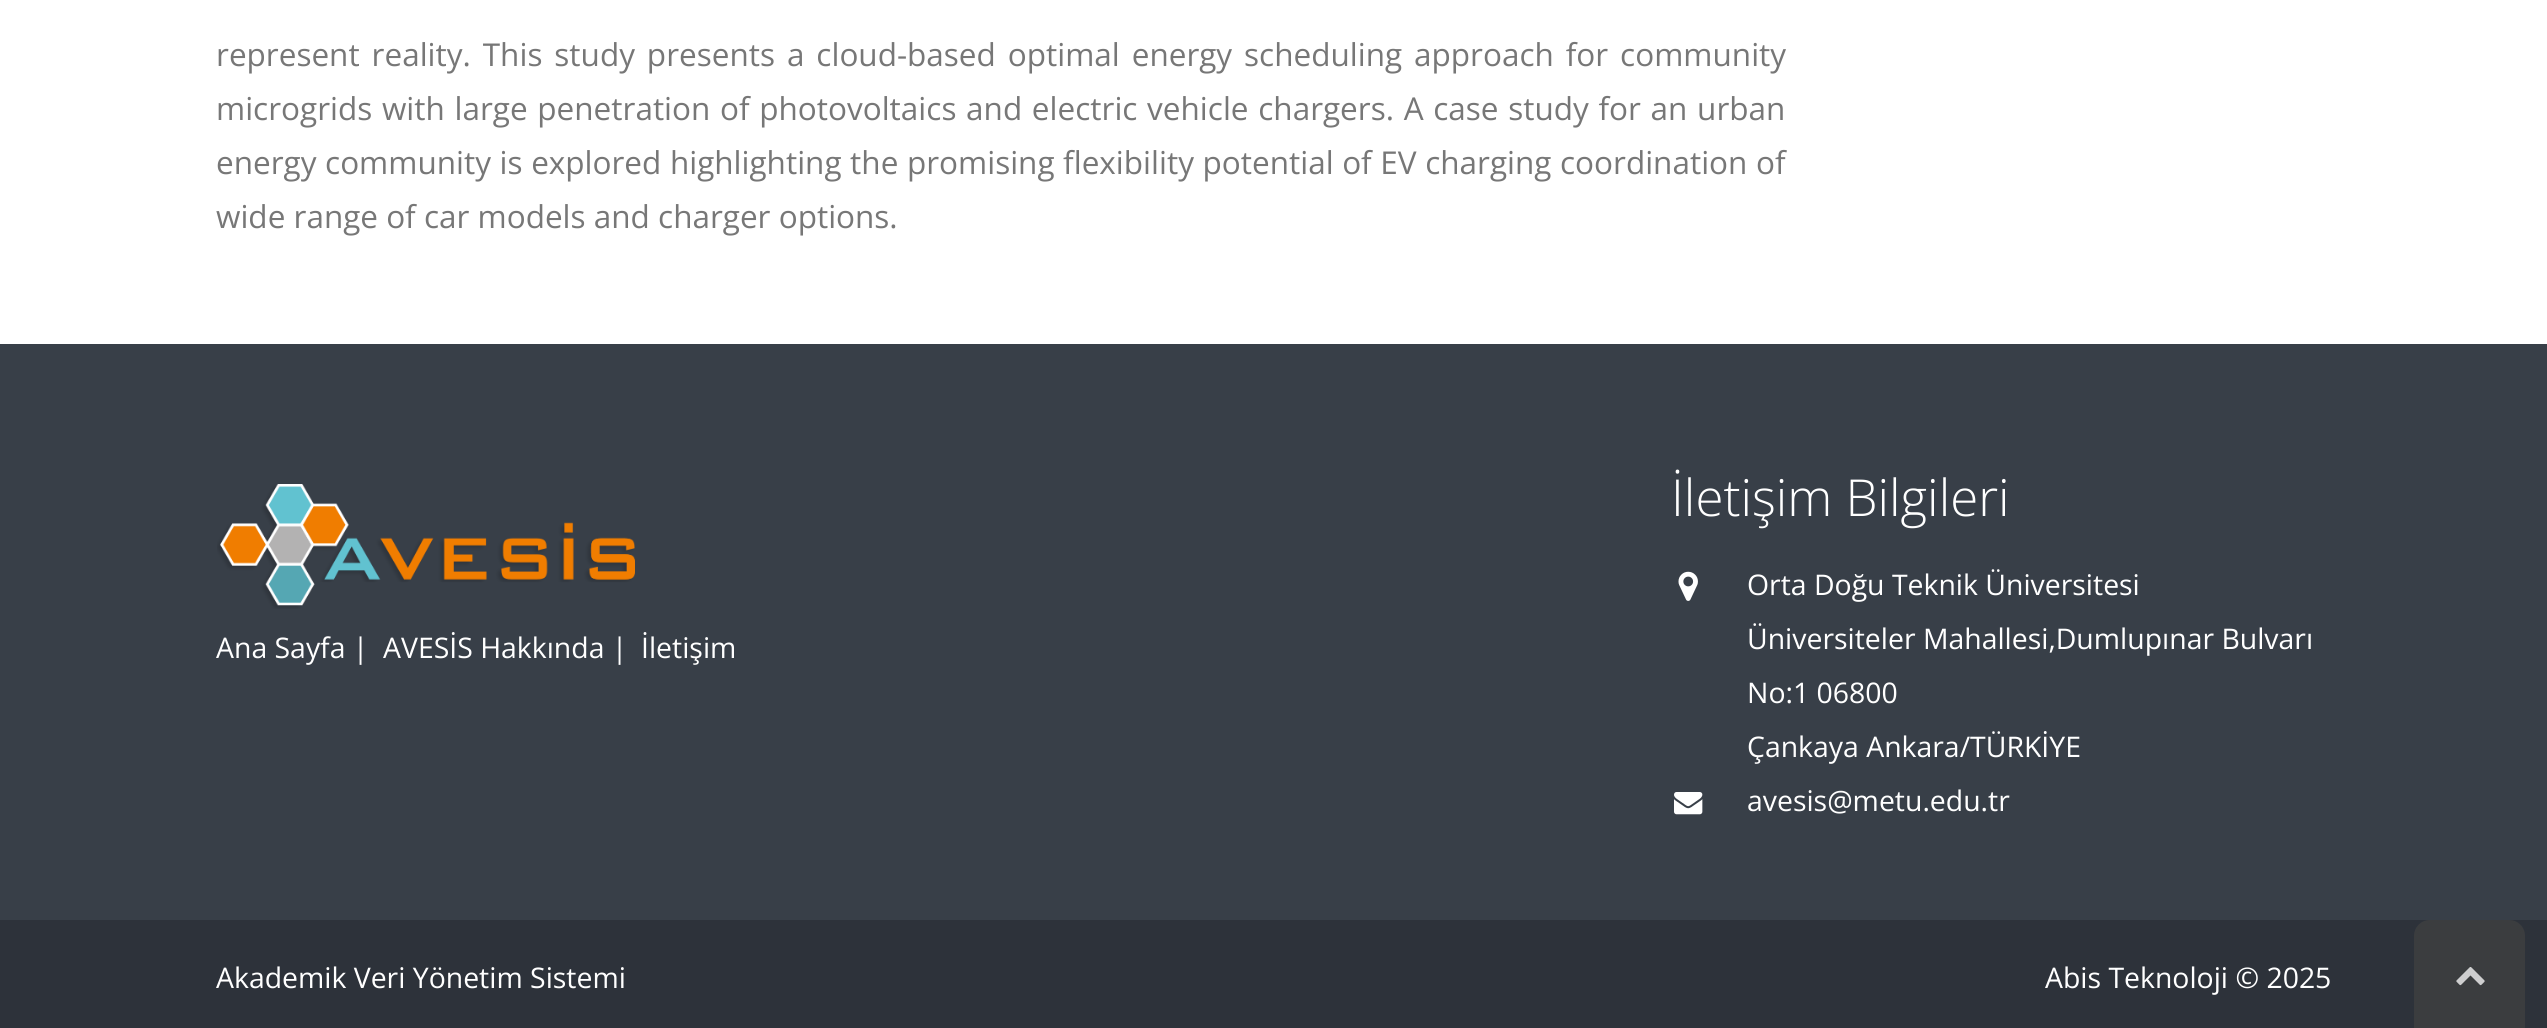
import math
import cairocffi as cairo

surface = cairo.ImageSurface(cairo.FORMAT_RGB24, 2547, 1028)
ctx = cairo.Context(surface)
options = cairo.FontOptions()
options.set_hint_metrics(cairo.HINT_METRICS_OFF)
options.set_hint_style(cairo.HINT_STYLE_NONE)
ctx.set_font_options(options)
ctx.set_miter_limit(4)


def rgb(r, g, b):
    ctx.set_source_rgb(r / 255, g / 255, b / 255)


def face(family, size, italic, bold):
    ctx.select_font_face(family, cairo.FONT_SLANT_ITALIC if italic else cairo.FONT_SLANT_NORMAL, cairo.FONT_WEIGHT_BOLD if bold else cairo.FONT_WEIGHT_NORMAL)
    ctx.set_font_size(size)


def label(x, y, s):
    ctx.move_to(x, y)
    ctx.show_text(s)


def tracked(x, y, s, letter, word):
    ctx.move_to(x, y)
    for ch in s:
        ctx.show_text(ch)
        ctx.rel_move_to(letter + word * (ch == ' '), 0)


def rect(x, y, w, h):
    ctx.rectangle(x, y, w, h)
    ctx.fill()


def image(path, x, y, w, h):
    ctx.save()
    ctx.set_source_surface(cairo.ImageSurface.create_from_png(path), x, y)
    ctx.rectangle(x, y, w, h)
    ctx.fill()
    ctx.restore()


rgb(255, 255, 255)
ctx.paint()
face('Open Sans', 31.5, 0, 0)
rgb(119, 119, 119)
tracked(216, 66, 'represent reality. This study presents a cloud-based optimal energy scheduling approach for community', 0, 3.75)
tracked(216, 120, 'microgrids with large penetration of photovoltaics and electric vehicle chargers. A case study for an urban', 0, 1.5)
tracked(216, 174, 'energy community is explored highlighting the promising flexibility potential of EV charging coordination of', 0, 0.4)
label(216, 228, 'wide range of car models and charger options.')
rgb(56, 63, 72)
rect(0, 344, 2547, 576)
image('image0.png', 217, 484, 418, 125)
face('Open Sans', 28.4, 0, 0)
rgb(255, 255, 255)
label(216, 658, 'Ana Sayfa |')
label(383, 658, 'AVESİS Hakkında |')
label(641, 658, 'İletişim')
face('Open Sans Light', 51, 0, 0)
label(1671, 516, 'İletişim Bilgileri')
image('image1.png', 1678, 571, 20, 30)
face('Open Sans', 28.4, 0, 0)
label(1747, 595, 'Orta Doğu Teknik Üniversitesi')
label(1747, 649, 'Üniversiteler Mahallesi,Dumlupınar Bulvarı')
label(1747, 703, 'No:1 06800')
label(1747, 757, 'Çankaya Ankara/TÜRKİYE')
image('image2.png', 1674, 792, 29, 23)
label(1747, 811, 'avesis@metu.edu.tr')
rgb(45, 50, 58)
rect(0, 920, 2547, 108)
rgb(255, 255, 255)
label(216, 988, 'Akademik Veri Yönetim Sistemi')
label(2045, 988, 'Abis Teknoloji © 2025')
rgb(59, 61, 63)
ctx.new_path()
ctx.move_to(2430, 920)
ctx.line_to(2509, 920)
ctx.curve_to(2518, 920, 2525, 927, 2525, 936)
ctx.line_to(2525, 1028)
ctx.line_to(2414, 1028)
ctx.line_to(2414, 936)
ctx.curve_to(2414, 927, 2421, 920, 2430, 920)
ctx.close_path()
ctx.fill()
image('image3.png', 2456, 967, 29, 19)
surface.write_to_png('render.png')
